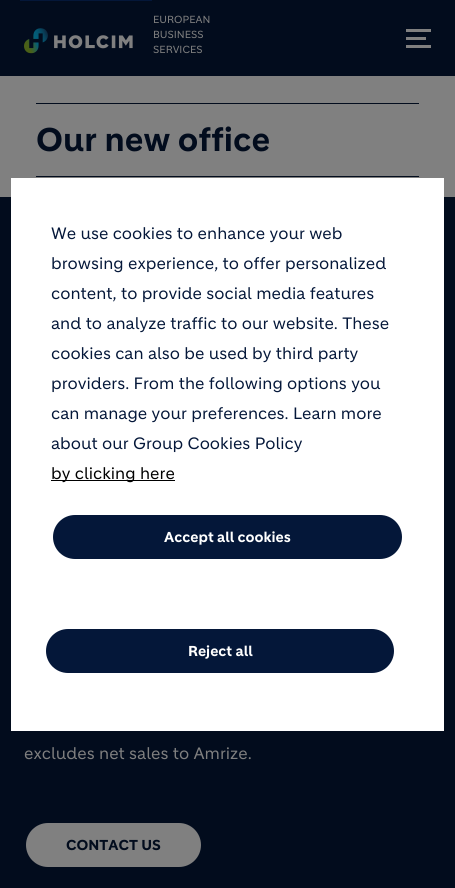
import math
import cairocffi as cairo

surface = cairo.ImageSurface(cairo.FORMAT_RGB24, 455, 888)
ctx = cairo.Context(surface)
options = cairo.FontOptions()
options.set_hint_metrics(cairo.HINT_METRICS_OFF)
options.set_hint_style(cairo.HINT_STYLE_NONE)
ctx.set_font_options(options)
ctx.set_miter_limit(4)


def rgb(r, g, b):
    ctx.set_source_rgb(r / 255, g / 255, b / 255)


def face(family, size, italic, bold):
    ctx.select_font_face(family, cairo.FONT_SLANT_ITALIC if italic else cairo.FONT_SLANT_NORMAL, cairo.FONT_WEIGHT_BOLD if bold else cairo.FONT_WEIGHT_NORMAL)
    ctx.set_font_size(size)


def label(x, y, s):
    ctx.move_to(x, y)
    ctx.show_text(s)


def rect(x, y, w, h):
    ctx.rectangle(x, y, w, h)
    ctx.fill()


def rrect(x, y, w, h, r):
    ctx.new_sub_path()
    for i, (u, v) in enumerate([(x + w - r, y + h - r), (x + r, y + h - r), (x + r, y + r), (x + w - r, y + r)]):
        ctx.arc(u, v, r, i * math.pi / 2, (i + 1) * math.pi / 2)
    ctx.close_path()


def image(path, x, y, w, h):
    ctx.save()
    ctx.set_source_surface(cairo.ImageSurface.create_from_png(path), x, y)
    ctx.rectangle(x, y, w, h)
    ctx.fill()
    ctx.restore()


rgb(128, 128, 128)
ctx.paint()
rgb(2, 12, 29)
rect(0, 0, 455, 76)
image('image0.png', 24, 28, 109, 26)
face('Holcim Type', 10, 0, 0)
rgb(128, 128, 128)
label(153, 23, 'EUROPEAN')
label(153, 38, 'BUSINESS')
label(153, 53, 'SERVICES')
rect(406, 29, 25, 3)
rect(406, 37, 20, 3)
rect(406, 45, 25, 3)
rgb(2, 12, 29)
rect(36, 103, 383, 1)
rect(36, 176, 383, 1)
face('Holcim Type', 32, 0, 1)
label(36, 151, 'Our new office')
rect(0, 197, 455, 691)
face('Holcim Type', 16, 0, 0)
rgb(128, 128, 128)
label(24, 759, 'excludes net sales to Amrize.')
rrect(25, 822, 177, 46, 23)
ctx.fill_preserve()
rgb(2, 12, 29)
ctx.stroke()
face('Holcim Type', 14, 0, 1)
label(66, 850, 'CONTACT US')
rgb(4, 23, 57)
rect(20, 0, 132, 1)
rgb(255, 255, 255)
rect(11, 178, 433, 553)
face('Holcim Type', 16, 0, 0)
rgb(4, 23, 57)
label(51, 239, 'We use cookies to enhance your web')
label(51, 269, 'browsing experience, to offer personalized')
label(51, 299, 'content, to provide social media features')
label(51, 329, 'and to analyze traffic to our website. These')
label(51, 359, 'cookies can also be used by third party')
label(51, 389, 'providers. From the following options you')
label(51, 419, 'can manage your preferences. Learn more')
label(51, 449, 'about our Group Cookies Policy')
rgb(0, 0, 0)
rect(51, 480, 124, 1)
label(51, 479, 'by clicking here')
rgb(4, 23, 57)
rrect(52, 514, 351, 46, 23)
ctx.fill_preserve()
rgb(255, 255, 255)
ctx.stroke()
face('Holcim Type', 14, 0, 1)
label(164, 542, 'Accept all cookies')
rgb(4, 23, 57)
rrect(45, 628, 350, 46, 23)
ctx.fill_preserve()
rgb(255, 255, 255)
ctx.stroke()
label(188, 656, 'Reject all')
surface.write_to_png('render.png')
